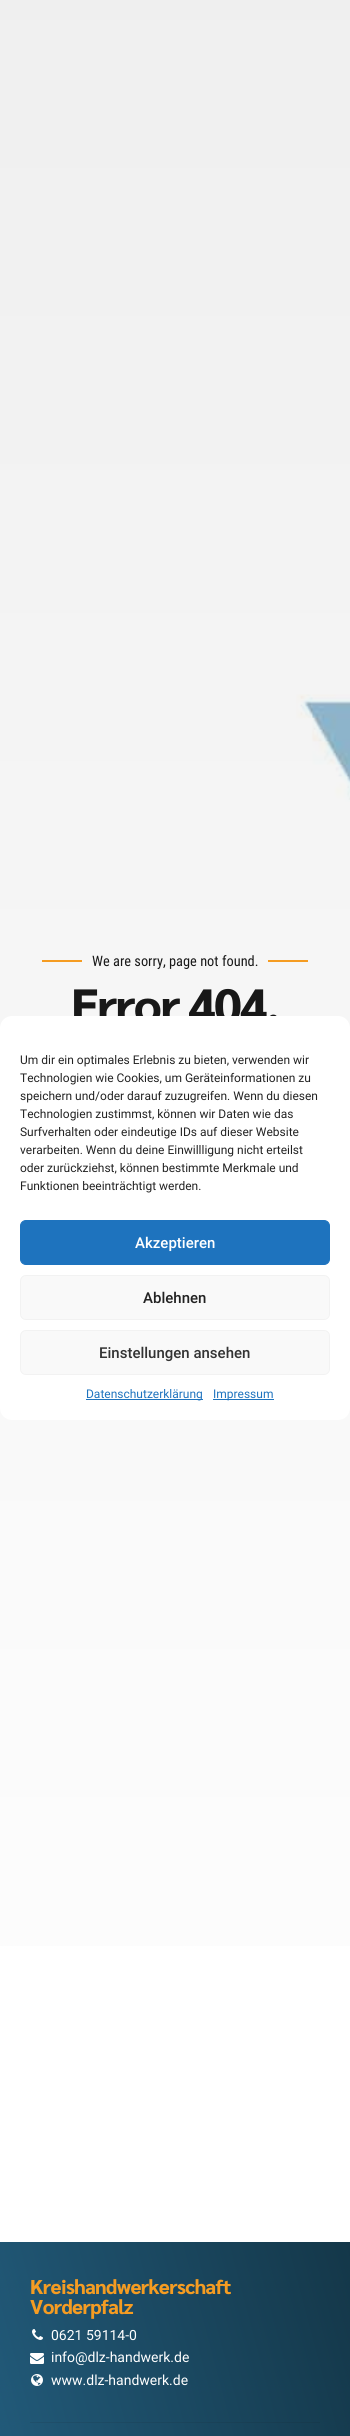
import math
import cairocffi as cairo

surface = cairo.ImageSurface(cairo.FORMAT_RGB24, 350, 2436)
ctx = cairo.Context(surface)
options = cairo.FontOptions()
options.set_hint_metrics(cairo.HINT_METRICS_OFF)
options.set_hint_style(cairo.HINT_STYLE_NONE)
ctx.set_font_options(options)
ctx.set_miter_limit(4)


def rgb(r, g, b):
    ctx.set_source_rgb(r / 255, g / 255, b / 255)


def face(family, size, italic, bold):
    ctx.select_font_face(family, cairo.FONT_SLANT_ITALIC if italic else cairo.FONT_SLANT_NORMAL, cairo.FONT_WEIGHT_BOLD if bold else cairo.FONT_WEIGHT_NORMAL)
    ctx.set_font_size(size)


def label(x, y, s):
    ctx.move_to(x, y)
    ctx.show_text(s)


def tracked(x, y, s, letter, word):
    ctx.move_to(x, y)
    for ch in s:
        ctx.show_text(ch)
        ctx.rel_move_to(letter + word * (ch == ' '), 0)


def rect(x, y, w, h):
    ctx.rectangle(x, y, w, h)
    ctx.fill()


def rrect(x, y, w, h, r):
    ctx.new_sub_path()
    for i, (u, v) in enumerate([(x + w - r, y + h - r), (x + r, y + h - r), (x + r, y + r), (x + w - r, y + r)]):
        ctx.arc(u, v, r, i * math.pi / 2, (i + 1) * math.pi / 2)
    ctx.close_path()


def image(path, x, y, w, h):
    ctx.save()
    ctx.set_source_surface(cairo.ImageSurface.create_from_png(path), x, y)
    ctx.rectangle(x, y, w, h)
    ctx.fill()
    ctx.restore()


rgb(255, 255, 255)
ctx.paint()
image('image0.png', 296, 694, 54, 108)
gradient = cairo.LinearGradient(175, -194, 175, 2242)
gradient.add_color_stop_rgba(0, 0.871, 0.871, 0.871, 0.5)
gradient.add_color_stop_rgba(1, 1, 1, 1, 0.5)
ctx.set_source(gradient)
rect(0, 0, 350, 1946)
rgb(245, 156, 34)
rect(42, 960, 40, 2)
face('Roboto Condensed', 14.4, 0, 0)
rgb(24, 24, 24)
label(92, 966, 'We are sorry, page not found.')
rgb(245, 156, 34)
rect(268, 960, 40, 2)
face('Sarabun ExtraBold', 48, 0, 0)
rgb(24, 24, 24)
tracked(71, 1023, 'Error 404.', -1.5, 0)
gradient = cairo.LinearGradient(-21, 2423, 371, 2319)
gradient.add_color_stop_rgba(0, 0.133, 0.357, 0.482, 1)
gradient.add_color_stop_rgba(1, 0.078, 0.216, 0.286, 1)
ctx.set_source(gradient)
rect(0, 2242, 350, 194)
gradient = cairo.LinearGradient(-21, 2423, 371, 2319)
gradient.add_color_stop_rgba(0, 0.129, 0.329, 0.443, 1)
gradient.add_color_stop_rgba(1, 0.078, 0.204, 0.267, 1)
ctx.set_source(gradient)
rect(30, 2422, 290, 1)
face('Sarabun ExtraBold', 20, 0, 0)
rgb(245, 156, 34)
tracked(30, 2294, 'Kreishandwerkerschaft', -0.6, 0)
tracked(30, 2314, 'Vorderpfalz', -0.6, 0)
image('image1.png', 32, 2329, 11, 11)
face('Roboto', 14, 0, 0)
rgb(255, 255, 255)
label(51, 2340, '0621 59114-0')
image('image2.png', 30, 2353, 14, 11)
label(51, 2362, 'info@dlz-handwerk.de')
image('image3.png', 31, 2374, 12, 12)
label(51, 2385, 'www.dlz-handwerk.de')
rrect(0, 1016, 350, 404, 12)
ctx.fill()
face('Roboto', 12, 0, 0)
rgb(34, 34, 34)
label(20, 1064, 'Um dir ein optimales Erlebnis zu bieten, verwenden wir')
label(20, 1082, 'Technologien wie Cookies, um Geräteinformationen zu')
label(20, 1100, 'speichern und/oder darauf zuzugreifen. Wenn du diesen')
label(20, 1118, 'Technologien zustimmst, können wir Daten wie das')
label(20, 1136, 'Surfverhalten oder eindeutige IDs auf dieser Website')
label(20, 1154, 'verarbeiten. Wenn du deine Einwillligung nicht erteilst')
label(20, 1172, 'oder zurückziehst, können bestimmte Merkmale und')
label(20, 1190, 'Funktionen beeinträchtigt werden.')
rgb(30, 115, 190)
rrect(20.5, 1220.5, 309, 44, 5.5)
ctx.fill_preserve()
ctx.set_line_width(1)
ctx.stroke()
face('Roboto Medium', 15, 0, 0)
rgb(255, 255, 255)
label(135, 1248, 'Akzeptieren')
rgb(249, 249, 249)
rrect(20.5, 1275.5, 309, 44, 5.5)
ctx.fill_preserve()
rgb(242, 242, 242)
ctx.stroke()
rgb(34, 34, 34)
label(143, 1303, 'Ablehnen')
rgb(249, 249, 249)
rrect(20.5, 1330.5, 309, 44, 5.5)
ctx.fill_preserve()
rgb(242, 242, 242)
ctx.stroke()
rgb(51, 51, 51)
label(99, 1358, 'Einstellungen ansehen')
rgb(30, 115, 190)
rect(86, 1399, 117, 1)
face('Roboto', 12, 0, 0)
label(86, 1398, 'Datenschutzerklärung')
rect(213, 1399, 61, 1)
label(213, 1398, 'Impressum')
surface.write_to_png('render.png')
